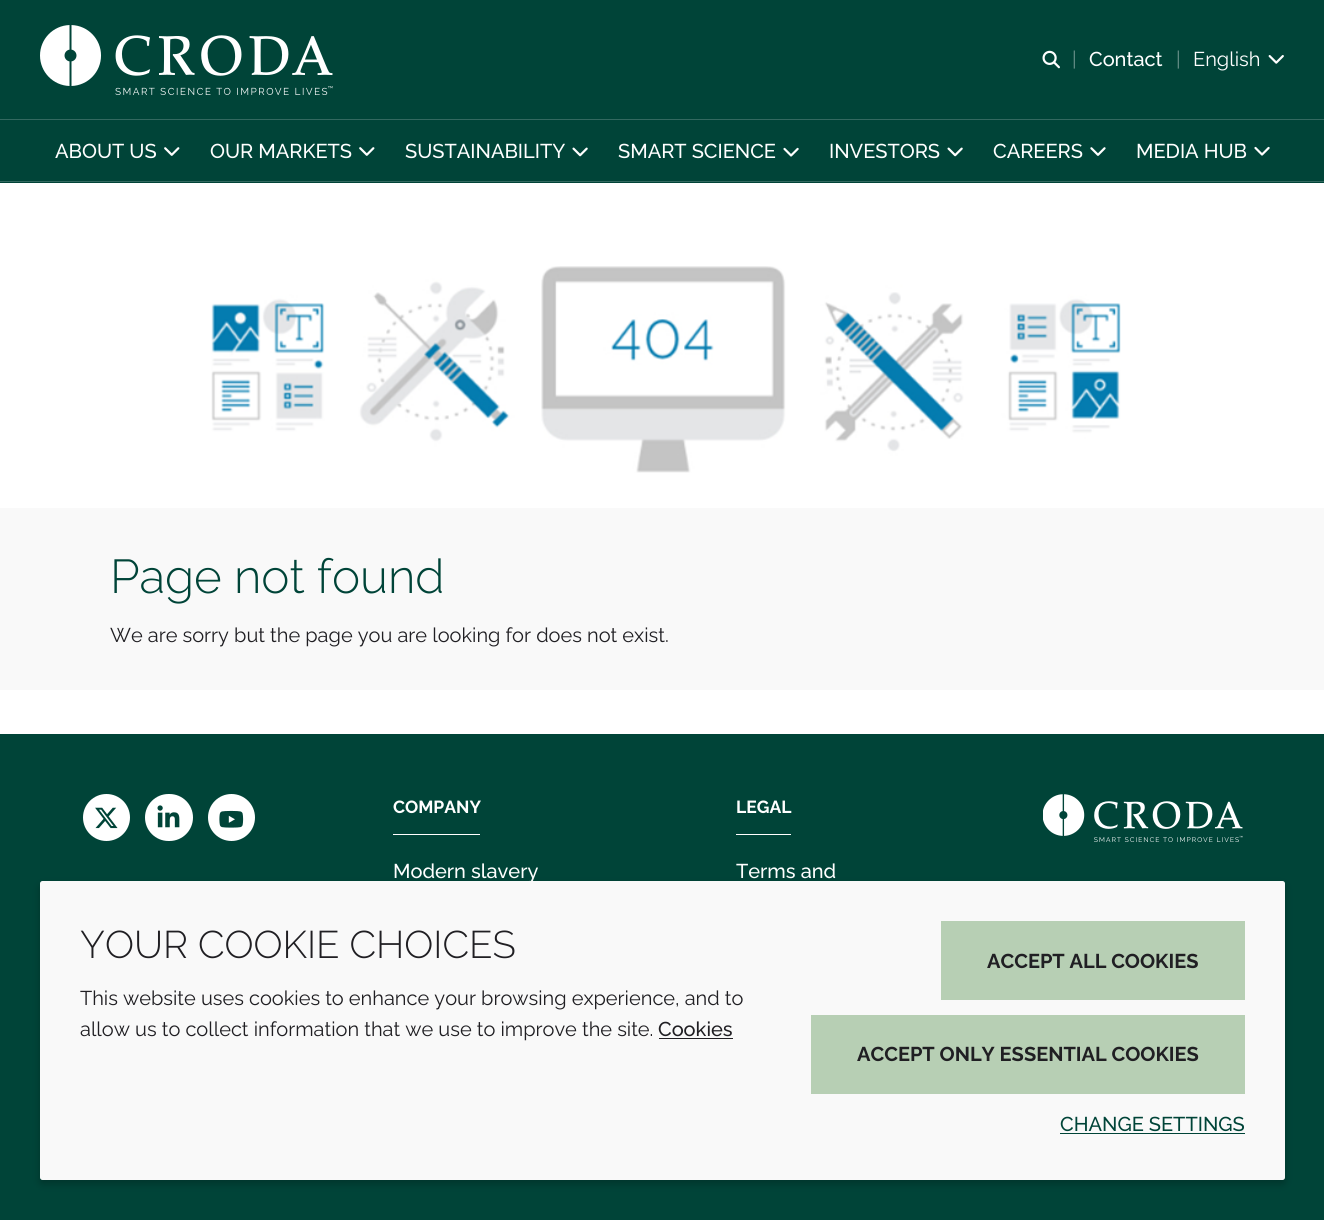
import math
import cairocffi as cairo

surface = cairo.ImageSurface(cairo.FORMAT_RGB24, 1324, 1220)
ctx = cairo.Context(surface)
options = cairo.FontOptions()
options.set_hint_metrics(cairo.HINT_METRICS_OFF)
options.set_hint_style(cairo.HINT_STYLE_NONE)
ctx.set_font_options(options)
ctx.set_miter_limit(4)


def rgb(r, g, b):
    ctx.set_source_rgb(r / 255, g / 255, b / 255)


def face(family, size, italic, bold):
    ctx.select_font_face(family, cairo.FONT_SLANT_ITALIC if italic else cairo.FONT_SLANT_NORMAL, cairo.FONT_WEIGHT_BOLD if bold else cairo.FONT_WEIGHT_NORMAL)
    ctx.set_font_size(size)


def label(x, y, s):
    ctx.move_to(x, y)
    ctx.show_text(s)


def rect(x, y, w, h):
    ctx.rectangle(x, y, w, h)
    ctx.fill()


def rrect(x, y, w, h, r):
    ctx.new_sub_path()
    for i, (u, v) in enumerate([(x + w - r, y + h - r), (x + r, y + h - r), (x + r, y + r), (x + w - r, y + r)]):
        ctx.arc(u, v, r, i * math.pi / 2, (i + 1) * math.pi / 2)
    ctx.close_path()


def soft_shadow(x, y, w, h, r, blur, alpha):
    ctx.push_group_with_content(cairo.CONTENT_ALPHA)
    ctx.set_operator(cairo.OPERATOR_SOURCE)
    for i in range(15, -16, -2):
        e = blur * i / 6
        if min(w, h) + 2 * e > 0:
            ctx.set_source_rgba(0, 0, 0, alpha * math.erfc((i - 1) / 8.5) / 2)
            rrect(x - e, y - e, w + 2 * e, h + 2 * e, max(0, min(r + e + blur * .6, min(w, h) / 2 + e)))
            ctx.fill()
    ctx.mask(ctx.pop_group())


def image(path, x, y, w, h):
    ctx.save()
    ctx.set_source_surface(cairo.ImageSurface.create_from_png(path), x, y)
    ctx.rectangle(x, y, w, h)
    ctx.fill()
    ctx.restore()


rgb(255, 255, 255)
ctx.paint()
rgb(0, 68, 56)
rect(0, 0, 1324, 183)
image('image0.png', 40, 25, 293, 70)
image('image1.png', 1042, 50, 18, 19)
face('Raleway', 20, 0, 0)
rgb(102, 143, 136)
label(1072, 66, '|')
face('Raleway Medium', 20, 0, 0)
rgb(255, 255, 255)
label(1089, 66, 'Contact')
face('Raleway', 20, 0, 0)
rgb(102, 143, 136)
label(1176, 66, '|')
rgb(255, 255, 255)
label(1193, 66, 'English')
image('image2.png', 1268, 55, 16, 9)
rgb(51, 105, 96)
rect(0, 119, 1324, 1)
rect(0, 181, 1324, 1)
face('Raleway Medium', 20, 0, 0)
rgb(255, 255, 255)
label(55, 158, 'ABOUT US')
image('image3.png', 164, 147, 16, 9)
label(210, 158, 'OUR MARKETS')
image('image4.png', 359, 147, 16, 9)
label(405, 158, 'SUSTAINABILITY')
image('image5.png', 572, 147, 16, 10)
label(618, 158, 'SMART SCIENCE')
image('image6.png', 783, 147, 16, 10)
label(829, 158, 'INVESTORS')
image('image7.png', 947, 147, 16, 10)
label(993, 158, 'CAREERS')
image('image8.png', 1090, 147, 16, 9)
label(1136, 158, 'MEDIA HUB')
image('image9.png', 1254, 146, 16, 10)
image('image10.png', 211, 266, 910, 207)
rgb(249, 249, 249)
rect(0, 508, 1324, 182)
face('Raleway Light', 47.5, 0, 0)
rgb(0, 68, 56)
label(110, 593, 'Page not found')
face('Raleway', 20, 0, 0)
rgb(32, 31, 35)
label(110, 642, 'We are sorry but the page you are looking for does not exist.')
rgb(0, 68, 56)
rect(0, 734, 1324, 486)
rgb(255, 255, 255)
ctx.new_path()
ctx.arc(106.5, 817.5, 23.5, 0, 2 * math.pi)
ctx.fill()
image('image11.png', 95, 807, 23, 22)
rrect(145, 794, 48, 47, 23.5)
ctx.fill()
image('image12.png', 157, 805, 23, 23)
ctx.arc(231.5, 817.5, 23.5, 0, 2 * math.pi)
ctx.fill()
image('image13.png', 219, 810, 25, 18)
rect(393, 834, 87, 1)
face('Raleway', 17.5, 0, 1)
label(393, 813, 'COMPANY')
face('Raleway Medium', 20, 0, 0)
label(393, 878, 'Modern slavery')
rect(736, 834, 55, 1)
face('Raleway', 17.5, 0, 1)
label(736, 813, 'LEGAL')
face('Raleway Medium', 20, 0, 0)
label(736, 878, 'Terms and')
image('image14.png', 1043, 794, 200, 48)
rgb(0, 0, 0)
soft_shadow(40, 885, 1245, 299, 2.5, 4, 0.23)
rgb(249, 249, 249)
rrect(40, 881, 1245, 299, 2.5)
ctx.fill()
face('Raleway Light', 38.5, 0, 0)
rgb(32, 31, 35)
label(80, 958, 'YOUR COOKIE CHOICES')
face('Raleway', 20, 0, 0)
label(80, 1005, 'This website uses cookies to enhance your browsing experience, and to')
label(80, 1036, 'allow us to collect information that we use to improve the site.')
face('Raleway Medium', 20, 0, 0)
label(658, 1036, 'Cookies')
rect(659, 1038, 74, 1)
rgb(183, 207, 180)
rect(941, 921, 304, 79)
face('Raleway', 20, 0, 1)
rgb(32, 31, 35)
label(987, 968, 'ACCEPT ALL COOKIES')
rgb(183, 207, 180)
rect(811, 1015, 434, 79)
rgb(32, 31, 35)
label(857, 1061, 'ACCEPT ONLY ESSENTIAL COOKIES')
face('Raleway Medium', 20, 0, 0)
rgb(0, 68, 56)
label(1060, 1131, 'CHANGE SETTINGS')
rect(1060, 1133, 185, 1)
surface.write_to_png('render.png')
